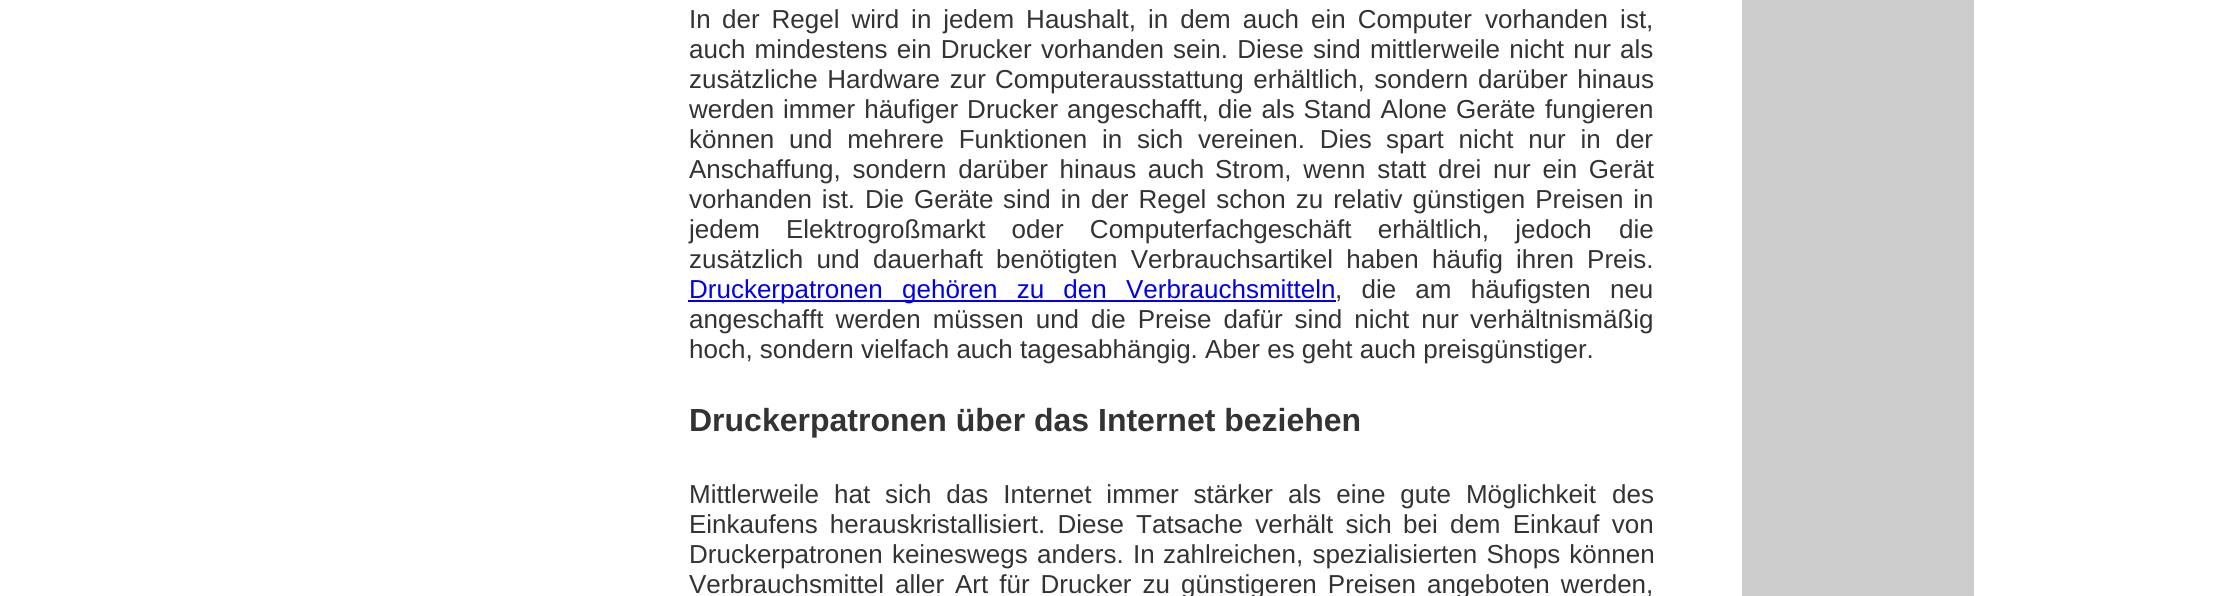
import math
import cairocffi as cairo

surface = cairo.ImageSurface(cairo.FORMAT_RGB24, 2226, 596)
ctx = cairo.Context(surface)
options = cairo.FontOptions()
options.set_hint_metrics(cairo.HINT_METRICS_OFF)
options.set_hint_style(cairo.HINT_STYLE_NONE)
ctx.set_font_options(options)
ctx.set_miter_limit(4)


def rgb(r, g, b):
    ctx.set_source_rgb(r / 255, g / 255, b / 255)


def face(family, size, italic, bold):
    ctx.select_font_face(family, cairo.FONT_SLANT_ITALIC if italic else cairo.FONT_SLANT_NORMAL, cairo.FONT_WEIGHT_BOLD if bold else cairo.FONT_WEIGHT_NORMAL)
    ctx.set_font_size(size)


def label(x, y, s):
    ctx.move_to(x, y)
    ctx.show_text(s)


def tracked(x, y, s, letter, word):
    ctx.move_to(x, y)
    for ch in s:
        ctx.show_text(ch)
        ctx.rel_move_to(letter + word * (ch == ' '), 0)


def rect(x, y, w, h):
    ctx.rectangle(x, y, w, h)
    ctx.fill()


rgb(255, 255, 255)
ctx.paint()
face('Liberation Sans', 26, 0, 0)
rgb(51, 51, 51)
label(689, 28, 'In')
tracked(722, 28, 'der Regel wird in jedem Haushalt, in dem auch ein Computer', 0, 4.75)
tracked(1485, 28, 'vorhanden ist,', 0, 5)
tracked(689, 58, 'auch mindestens ein Drucker vorhanden sein. Diese', 0, 2)
tracked(1313, 58, 'sind mittlerweile nicht nur als', 0, 2)
tracked(689, 88, 'zusätzliche Hardware zur', 0, 2.5)
tracked(995, 88, 'Computerausstattung erhältlich, sondern darüber hinaus', 0, 2.5)
label(689, 118, 'werden')
tracked(783, 118, 'immer häufiger Drucker angeschafft, die als Stand Alone Geräte', 0, 1.75)
label(1545, 118, 'fungieren')
tracked(689, 148, 'können und mehrere Funktionen in sich vereinen. Dies', 0, 7.5)
tracked(1386, 148, 'spart nicht nur in der', 0, 7.5)
tracked(689, 178, 'Anschaffung, sondern darüber hinaus auch', 0, 4.5)
tracked(1215, 178, 'Strom, wenn statt drei nur ein Gerät', 0, 4.5)
tracked(689, 208, 'vorhanden ist. Die Geräte', 0, 2.75)
tracked(1003, 208, 'sind in der Regel schon zu relativ günstigen Preisen in', 0, 2.75)
label(689, 238, 'jedem')
tracked(786, 238, 'Elektrogroßmarkt oder Computerfachgeschäft erhältlich, jedoch', 0, 19)
label(1619, 238, 'die')
tracked(689, 268, 'zusätzlich und dauerhaft benötigten Verbrauchsartikel haben', 0, 6)
tracked(1432, 268, 'häufig ihren Preis.', 0, 6)
rgb(0, 0, 238)
rect(688, 300, 648, 2)
label(689, 298, 'Druckerpatronen')
tracked(902, 298, 'gehören zu den Verbrauchsmitteln', 0, 12)
rgb(51, 51, 51)
tracked(1335, 298, ', die am häufigsten neu', 0, 12)
tracked(689, 328, 'angeschafft werden müssen und die Preise dafür sind nicht nur', 0, 4.75)
label(1470, 328, 'verhältnismäßig')
label(689, 358, 'hoch, sondern vielfach auch tagesabhängig. Aber es geht auch preisgünstiger.')
face('Liberation Sans', 32, 0, 1)
label(689, 431, 'Druckerpatronen über das Internet beziehen')
face('Liberation Sans', 26, 0, 0)
label(689, 503, 'Mittlerweile')
tracked(834, 503, 'hat sich das Internet immer stärker als eine gute Möglichkeit', 0, 7.75)
label(1612, 503, 'des')
tracked(689, 533, 'Einkaufens herauskristallisiert. Diese Tatsache verhält sich', 0, 5)
tracked(1403, 533, 'bei dem Einkauf von', 0, 5)
tracked(689, 563, 'Druckerpatronen keineswegs anders. In', 0, 2)
tracked(1163, 563, 'zahlreichen, spezialisierten Shops können', 0, 2)
tracked(689, 593, 'Verbrauchsmittel aller', 0, 3.75)
tracked(955, 593, 'Art für Drucker zu günstigeren Preisen angeboten werden,', 0, 3.75)
rgb(204, 204, 204)
rect(1742, 0, 232, 596)
surface.write_to_png('render.png')
